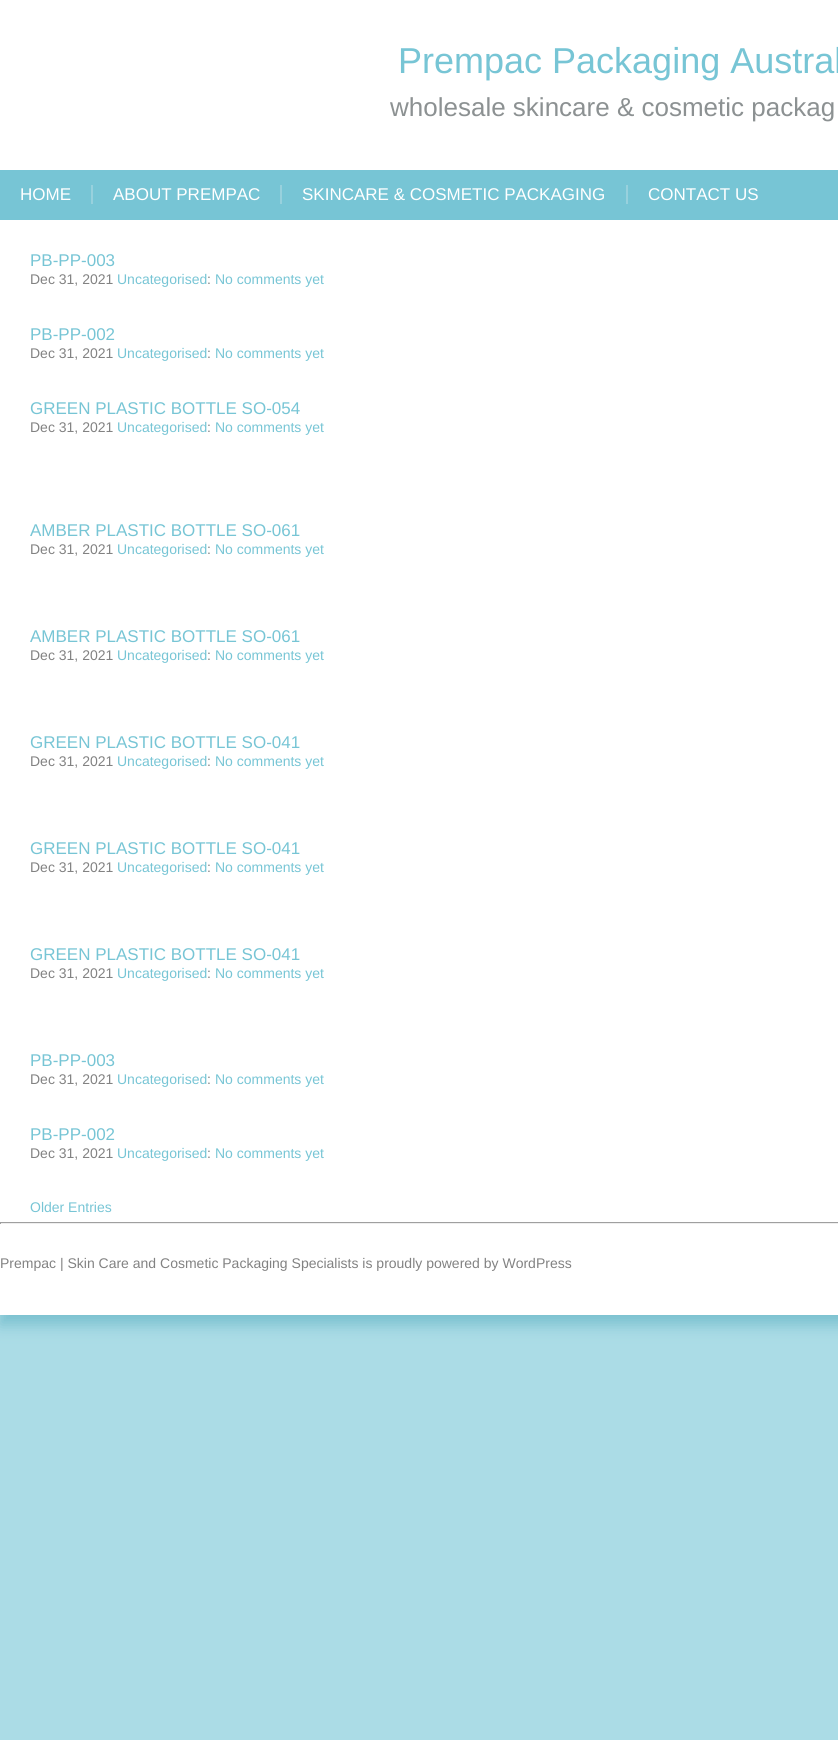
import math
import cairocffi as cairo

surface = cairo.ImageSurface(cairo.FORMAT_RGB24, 838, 1740)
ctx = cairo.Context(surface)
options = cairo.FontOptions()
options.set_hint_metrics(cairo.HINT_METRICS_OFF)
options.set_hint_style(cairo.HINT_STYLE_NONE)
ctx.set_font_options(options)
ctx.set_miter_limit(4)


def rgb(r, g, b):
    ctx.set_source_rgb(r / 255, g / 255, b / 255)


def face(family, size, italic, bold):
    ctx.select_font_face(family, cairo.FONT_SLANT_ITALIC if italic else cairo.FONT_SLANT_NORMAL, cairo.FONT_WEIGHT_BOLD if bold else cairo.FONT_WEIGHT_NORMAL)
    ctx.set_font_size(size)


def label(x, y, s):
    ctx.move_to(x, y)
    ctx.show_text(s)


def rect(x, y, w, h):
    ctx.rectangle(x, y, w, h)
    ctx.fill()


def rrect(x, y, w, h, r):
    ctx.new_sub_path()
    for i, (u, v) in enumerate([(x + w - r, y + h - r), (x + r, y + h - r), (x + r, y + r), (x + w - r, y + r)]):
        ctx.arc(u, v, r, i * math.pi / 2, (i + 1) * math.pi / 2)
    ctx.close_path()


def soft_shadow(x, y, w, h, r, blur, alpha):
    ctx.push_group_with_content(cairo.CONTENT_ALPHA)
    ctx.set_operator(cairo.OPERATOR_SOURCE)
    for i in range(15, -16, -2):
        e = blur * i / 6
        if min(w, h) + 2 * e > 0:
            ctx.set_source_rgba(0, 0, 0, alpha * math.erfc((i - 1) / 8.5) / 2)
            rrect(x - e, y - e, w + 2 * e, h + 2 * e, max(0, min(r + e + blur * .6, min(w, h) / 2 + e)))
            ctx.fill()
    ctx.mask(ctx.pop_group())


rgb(171, 220, 230)
ctx.paint()
rgb(106, 183, 200)
soft_shadow(0, 10, 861, 1315, 0, 7.5, 0.75)
rgb(255, 255, 255)
rect(0, 0, 838, 1315)
face('Liberation Sans', 36, 0, 0)
rgb(119, 197, 213)
label(398, 73, 'Prempac Packaging Austral')
face('Liberation Sans', 26, 0, 0)
rgb(140, 145, 146)
label(390, 116, 'wholesale skincare & cosmetic packag')
rgb(119, 197, 213)
rect(0, 170, 838, 50)
face('Liberation Sans', 17, 0, 0)
rgb(255, 255, 255)
label(20, 200, 'HOME')
label(113, 200, 'ABOUT PREMPAC')
rgb(152, 209, 221)
rect(91, 185, 2, 19)
rgb(255, 255, 255)
label(302, 200, 'SKINCARE & COSMETIC PACKAGING')
rgb(152, 209, 221)
rect(280, 185, 2, 19)
rgb(255, 255, 255)
label(648, 200, 'CONTACT US')
rgb(152, 209, 221)
rect(626, 185, 2, 19)
rgb(119, 197, 213)
label(30, 266, 'PB-PP-003')
face('Liberation Sans', 14, 0, 0)
rgb(130, 130, 130)
label(30, 284, 'Dec 31, 2021')
rgb(119, 197, 213)
label(117, 284, 'Uncategorised')
rgb(130, 130, 130)
label(207, 284, ':')
rgb(119, 197, 213)
label(215, 284, 'No comments yet')
face('Liberation Sans', 17, 0, 0)
label(30, 340, 'PB-PP-002')
face('Liberation Sans', 14, 0, 0)
rgb(130, 130, 130)
label(30, 358, 'Dec 31, 2021')
rgb(119, 197, 213)
label(117, 358, 'Uncategorised')
rgb(130, 130, 130)
label(207, 358, ':')
rgb(119, 197, 213)
label(215, 358, 'No comments yet')
face('Liberation Sans', 17, 0, 0)
label(30, 414, 'GREEN PLASTIC BOTTLE SO-054')
face('Liberation Sans', 14, 0, 0)
rgb(130, 130, 130)
label(30, 432, 'Dec 31, 2021')
rgb(119, 197, 213)
label(117, 432, 'Uncategorised')
rgb(130, 130, 130)
label(207, 432, ':')
rgb(119, 197, 213)
label(215, 432, 'No comments yet')
face('Liberation Sans', 17, 0, 0)
label(30, 536, 'AMBER PLASTIC BOTTLE SO-061')
face('Liberation Sans', 14, 0, 0)
rgb(130, 130, 130)
label(30, 554, 'Dec 31, 2021')
rgb(119, 197, 213)
label(117, 554, 'Uncategorised')
rgb(130, 130, 130)
label(207, 554, ':')
rgb(119, 197, 213)
label(215, 554, 'No comments yet')
face('Liberation Sans', 17, 0, 0)
label(30, 642, 'AMBER PLASTIC BOTTLE SO-061')
face('Liberation Sans', 14, 0, 0)
rgb(130, 130, 130)
label(30, 660, 'Dec 31, 2021')
rgb(119, 197, 213)
label(117, 660, 'Uncategorised')
rgb(130, 130, 130)
label(207, 660, ':')
rgb(119, 197, 213)
label(215, 660, 'No comments yet')
face('Liberation Sans', 17, 0, 0)
label(30, 748, 'GREEN PLASTIC BOTTLE SO-041')
face('Liberation Sans', 14, 0, 0)
rgb(130, 130, 130)
label(30, 766, 'Dec 31, 2021')
rgb(119, 197, 213)
label(117, 766, 'Uncategorised')
rgb(130, 130, 130)
label(207, 766, ':')
rgb(119, 197, 213)
label(215, 766, 'No comments yet')
face('Liberation Sans', 17, 0, 0)
label(30, 854, 'GREEN PLASTIC BOTTLE SO-041')
face('Liberation Sans', 14, 0, 0)
rgb(130, 130, 130)
label(30, 872, 'Dec 31, 2021')
rgb(119, 197, 213)
label(117, 872, 'Uncategorised')
rgb(130, 130, 130)
label(207, 872, ':')
rgb(119, 197, 213)
label(215, 872, 'No comments yet')
face('Liberation Sans', 17, 0, 0)
label(30, 960, 'GREEN PLASTIC BOTTLE SO-041')
face('Liberation Sans', 14, 0, 0)
rgb(130, 130, 130)
label(30, 978, 'Dec 31, 2021')
rgb(119, 197, 213)
label(117, 978, 'Uncategorised')
rgb(130, 130, 130)
label(207, 978, ':')
rgb(119, 197, 213)
label(215, 978, 'No comments yet')
face('Liberation Sans', 17, 0, 0)
label(30, 1066, 'PB-PP-003')
face('Liberation Sans', 14, 0, 0)
rgb(130, 130, 130)
label(30, 1084, 'Dec 31, 2021')
rgb(119, 197, 213)
label(117, 1084, 'Uncategorised')
rgb(130, 130, 130)
label(207, 1084, ':')
rgb(119, 197, 213)
label(215, 1084, 'No comments yet')
face('Liberation Sans', 17, 0, 0)
label(30, 1140, 'PB-PP-002')
face('Liberation Sans', 14, 0, 0)
rgb(130, 130, 130)
label(30, 1158, 'Dec 31, 2021')
rgb(119, 197, 213)
label(117, 1158, 'Uncategorised')
rgb(130, 130, 130)
label(207, 1158, ':')
rgb(119, 197, 213)
label(215, 1158, 'No comments yet')
label(30, 1212, 'Older Entries')
rgb(159, 159, 159)
rect(0, 1222, 838, 1)
rgb(238, 238, 238)
rect(0, 1223, 838, 1)
rgb(159, 159, 159)
rect(0, 1222, 1, 2)
rgb(130, 130, 130)
label(0, 1268, 'Prempac | Skin Care and Cosmetic Packaging Specialists is proudly powered by WordPress')
surface.write_to_png('render.png')
